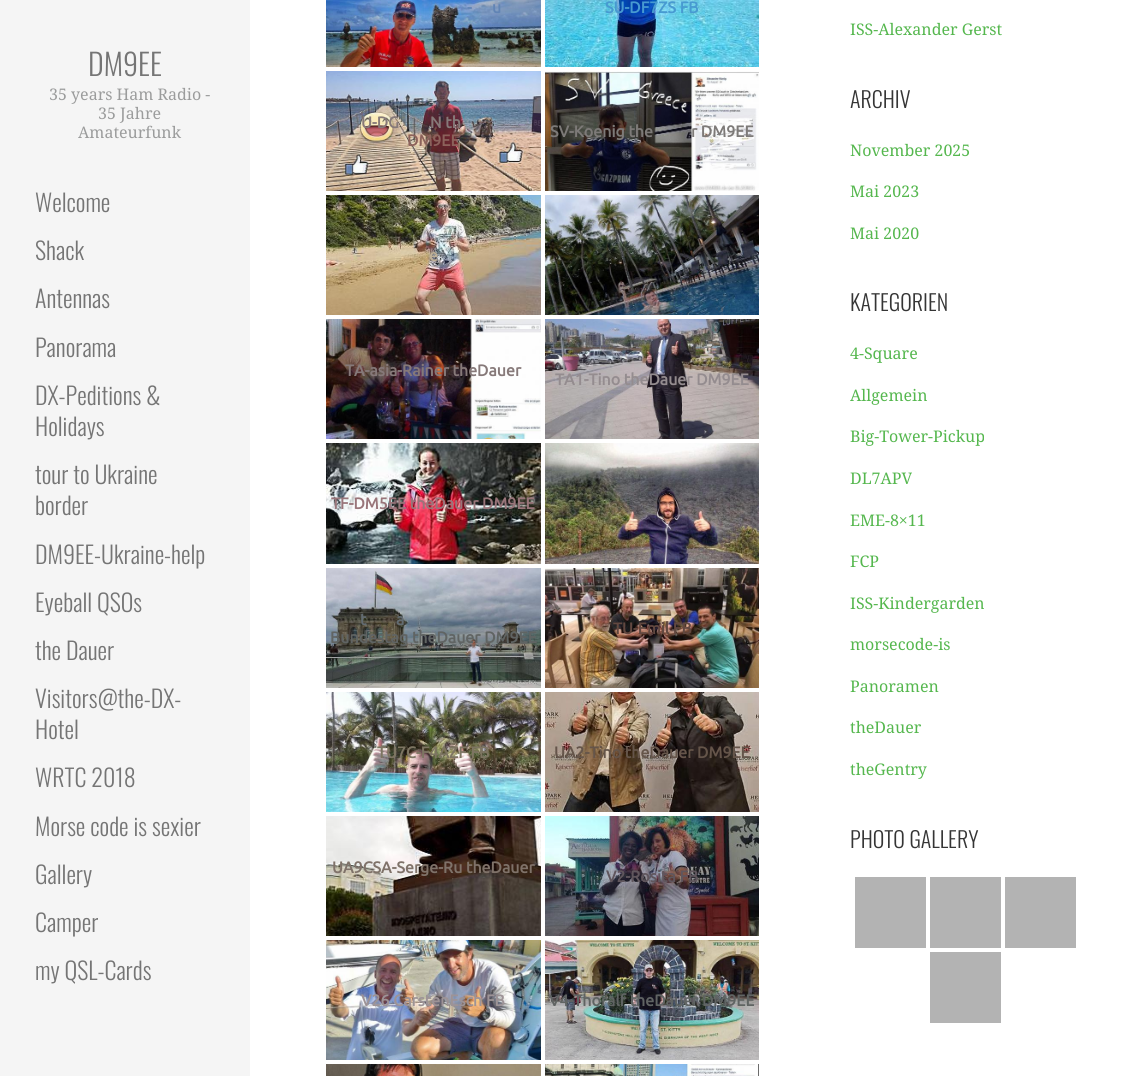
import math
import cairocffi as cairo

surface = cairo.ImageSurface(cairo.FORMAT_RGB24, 1128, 1076)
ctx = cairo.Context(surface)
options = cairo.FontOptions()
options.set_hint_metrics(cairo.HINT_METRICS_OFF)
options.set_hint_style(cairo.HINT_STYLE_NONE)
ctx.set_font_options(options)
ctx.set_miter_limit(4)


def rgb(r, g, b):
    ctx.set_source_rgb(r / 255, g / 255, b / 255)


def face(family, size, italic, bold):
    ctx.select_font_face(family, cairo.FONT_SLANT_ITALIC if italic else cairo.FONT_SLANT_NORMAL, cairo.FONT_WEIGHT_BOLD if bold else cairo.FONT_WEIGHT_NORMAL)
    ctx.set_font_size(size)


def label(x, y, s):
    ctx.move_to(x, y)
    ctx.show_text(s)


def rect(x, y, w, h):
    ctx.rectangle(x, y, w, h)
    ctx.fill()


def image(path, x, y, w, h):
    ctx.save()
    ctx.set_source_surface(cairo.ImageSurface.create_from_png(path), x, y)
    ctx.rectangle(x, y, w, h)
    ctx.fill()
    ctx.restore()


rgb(255, 255, 255)
ctx.paint()
rgb(245, 245, 245)
rect(0, 0, 250, 1076)
face('Oswald Light', 30, 0, 0)
rgb(117, 117, 117)
label(88, 76, 'DM9EE')
face('Droid Serif', 16, 0, 0)
rgb(155, 156, 156)
label(49, 100, '35 years Ham Radio -')
label(98, 119, '35 Jahre')
label(78, 138, 'Amateurfunk')
face('Oswald Light', 24, 0, 0)
rgb(117, 117, 117)
label(35, 212, 'Welcome')
label(35, 260, 'Shack')
label(35, 308, 'Antennas')
label(35, 357, 'Panorama')
label(35, 405, 'DX-Peditions &')
label(35, 436, 'Holidays')
label(35, 484, 'tour to Ukraine')
label(35, 515, 'border')
label(35, 564, 'DM9EE-Ukraine-help')
label(35, 612, 'Eyeball QSOs')
label(35, 660, 'the Dauer')
label(35, 708, 'Visitors@the-DX-')
label(35, 739, 'Hotel')
label(35, 787, 'WRTC 2018')
label(35, 836, 'Morse code is sexier')
label(35, 884, 'Gallery')
label(35, 932, 'Camper')
label(35, 980, 'my QSL-Cards')
image('image0.png', 326, 0, 215, 67)
face('Ubuntu', 16, 0, 1)
rgb(97, 132, 181)
label(467, 13, '-')
label(492, 13, 'u')
image('image1.png', 545, 0, 214, 67)
rgb(71, 154, 209)
label(605, 13, 'SU-DF7ZS FB')
image('image2.png', 326, 71, 215, 120)
rgb(134, 121, 121)
label(361, 128, 'U-DG')
label(430, 128, 'N th')
rgb(140, 98, 91)
label(407, 146, 'DM9EE')
image('image3.png', 545, 71, 214, 120)
rgb(125, 122, 120)
label(550, 137, 'SV-Koenig the')
label(691, 137, 'r DM9EE')
image('image4.png', 326, 195, 215, 120)
rgb(190, 176, 151)
label(356, 261, '-')
label(429, 261, 'e')
image('image5.png', 545, 195, 214, 120)
image('image6.png', 326, 319, 215, 120)
rgb(134, 121, 121)
label(345, 376, 'TA-asia-Rainer theDauer')
image('image7.png', 545, 319, 214, 120)
rgb(148, 140, 143)
label(555, 385, 'TA1-Tino theDauer DM9EE')
image('image8.png', 326, 443, 215, 121)
rgb(153, 117, 122)
label(331, 509, 'TF-DM5EE theDauer DM9EE')
image('image9.png', 545, 443, 214, 121)
image('image10.png', 326, 568, 215, 120)
rgb(99, 108, 114)
label(360, 625, 't')
label(396, 625, 'a')
rgb(96, 100, 99)
label(330, 643, 'Bundestag theDauer DM9EE')
image('image11.png', 545, 568, 214, 120)
rgb(98, 72, 64)
label(613, 634, 'TU-Emil FB')
image('image12.png', 326, 692, 215, 120)
rgb(125, 117, 98)
label(377, 758, 'TU7C-F4AZF FB')
image('image13.png', 545, 692, 214, 120)
rgb(101, 85, 74)
label(554, 758, 'UA2-Tino theDauer DM9EE')
image('image14.png', 326, 816, 215, 120)
rgb(127, 114, 105)
label(332, 873, 'UA9CSA-Serge-Ru theDauer')
image('image15.png', 545, 816, 214, 120)
rgb(96, 86, 93)
label(606, 882, 'V2-Rosita FB')
image('image16.png', 326, 940, 215, 120)
rgb(157, 147, 150)
label(361, 1006, 'V26 CarstenEsch FB')
image('image17.png', 545, 940, 214, 120)
rgb(96, 100, 99)
label(549, 1006, 'V4-Thoralf theDauer DM9EE')
image('image18.png', 326, 1064, 215, 12)
image('image19.png', 545, 1064, 214, 12)
face('Droid Serif', 16, 0, 0)
rgb(85, 183, 78)
label(850, 35, 'ISS-Alexander Gerst')
face('Oswald Light', 22, 0, 0)
rgb(53, 53, 53)
label(850, 108, 'ARCHIV')
face('Droid Serif', 16, 0, 0)
rgb(85, 183, 78)
label(850, 156, 'November 2025')
label(850, 197, 'Mai 2023')
label(850, 239, 'Mai 2020')
face('Oswald Light', 22, 0, 0)
rgb(53, 53, 53)
label(850, 311, 'KATEGORIEN')
face('Droid Serif', 16, 0, 0)
rgb(85, 183, 78)
label(850, 359, '4-Square')
label(850, 401, 'Allgemein')
label(850, 442, 'Big-Tower-Pickup')
label(850, 484, 'DL7APV')
label(850, 526, 'EME-8×11')
label(850, 567, 'FCP')
label(850, 609, 'ISS-Kindergarden')
label(850, 650, 'morsecode-is')
label(850, 692, 'Panoramen')
label(850, 733, 'theDauer')
label(850, 775, 'theGentry')
face('Oswald Light', 22, 0, 0)
rgb(53, 53, 53)
label(850, 848, 'PHOTO GALLERY')
rgb(179, 179, 179)
rect(855, 877, 71, 71)
rect(930, 877, 71, 71)
rect(1005, 877, 71, 71)
rect(930, 952, 71, 71)
surface.write_to_png('render.png')
